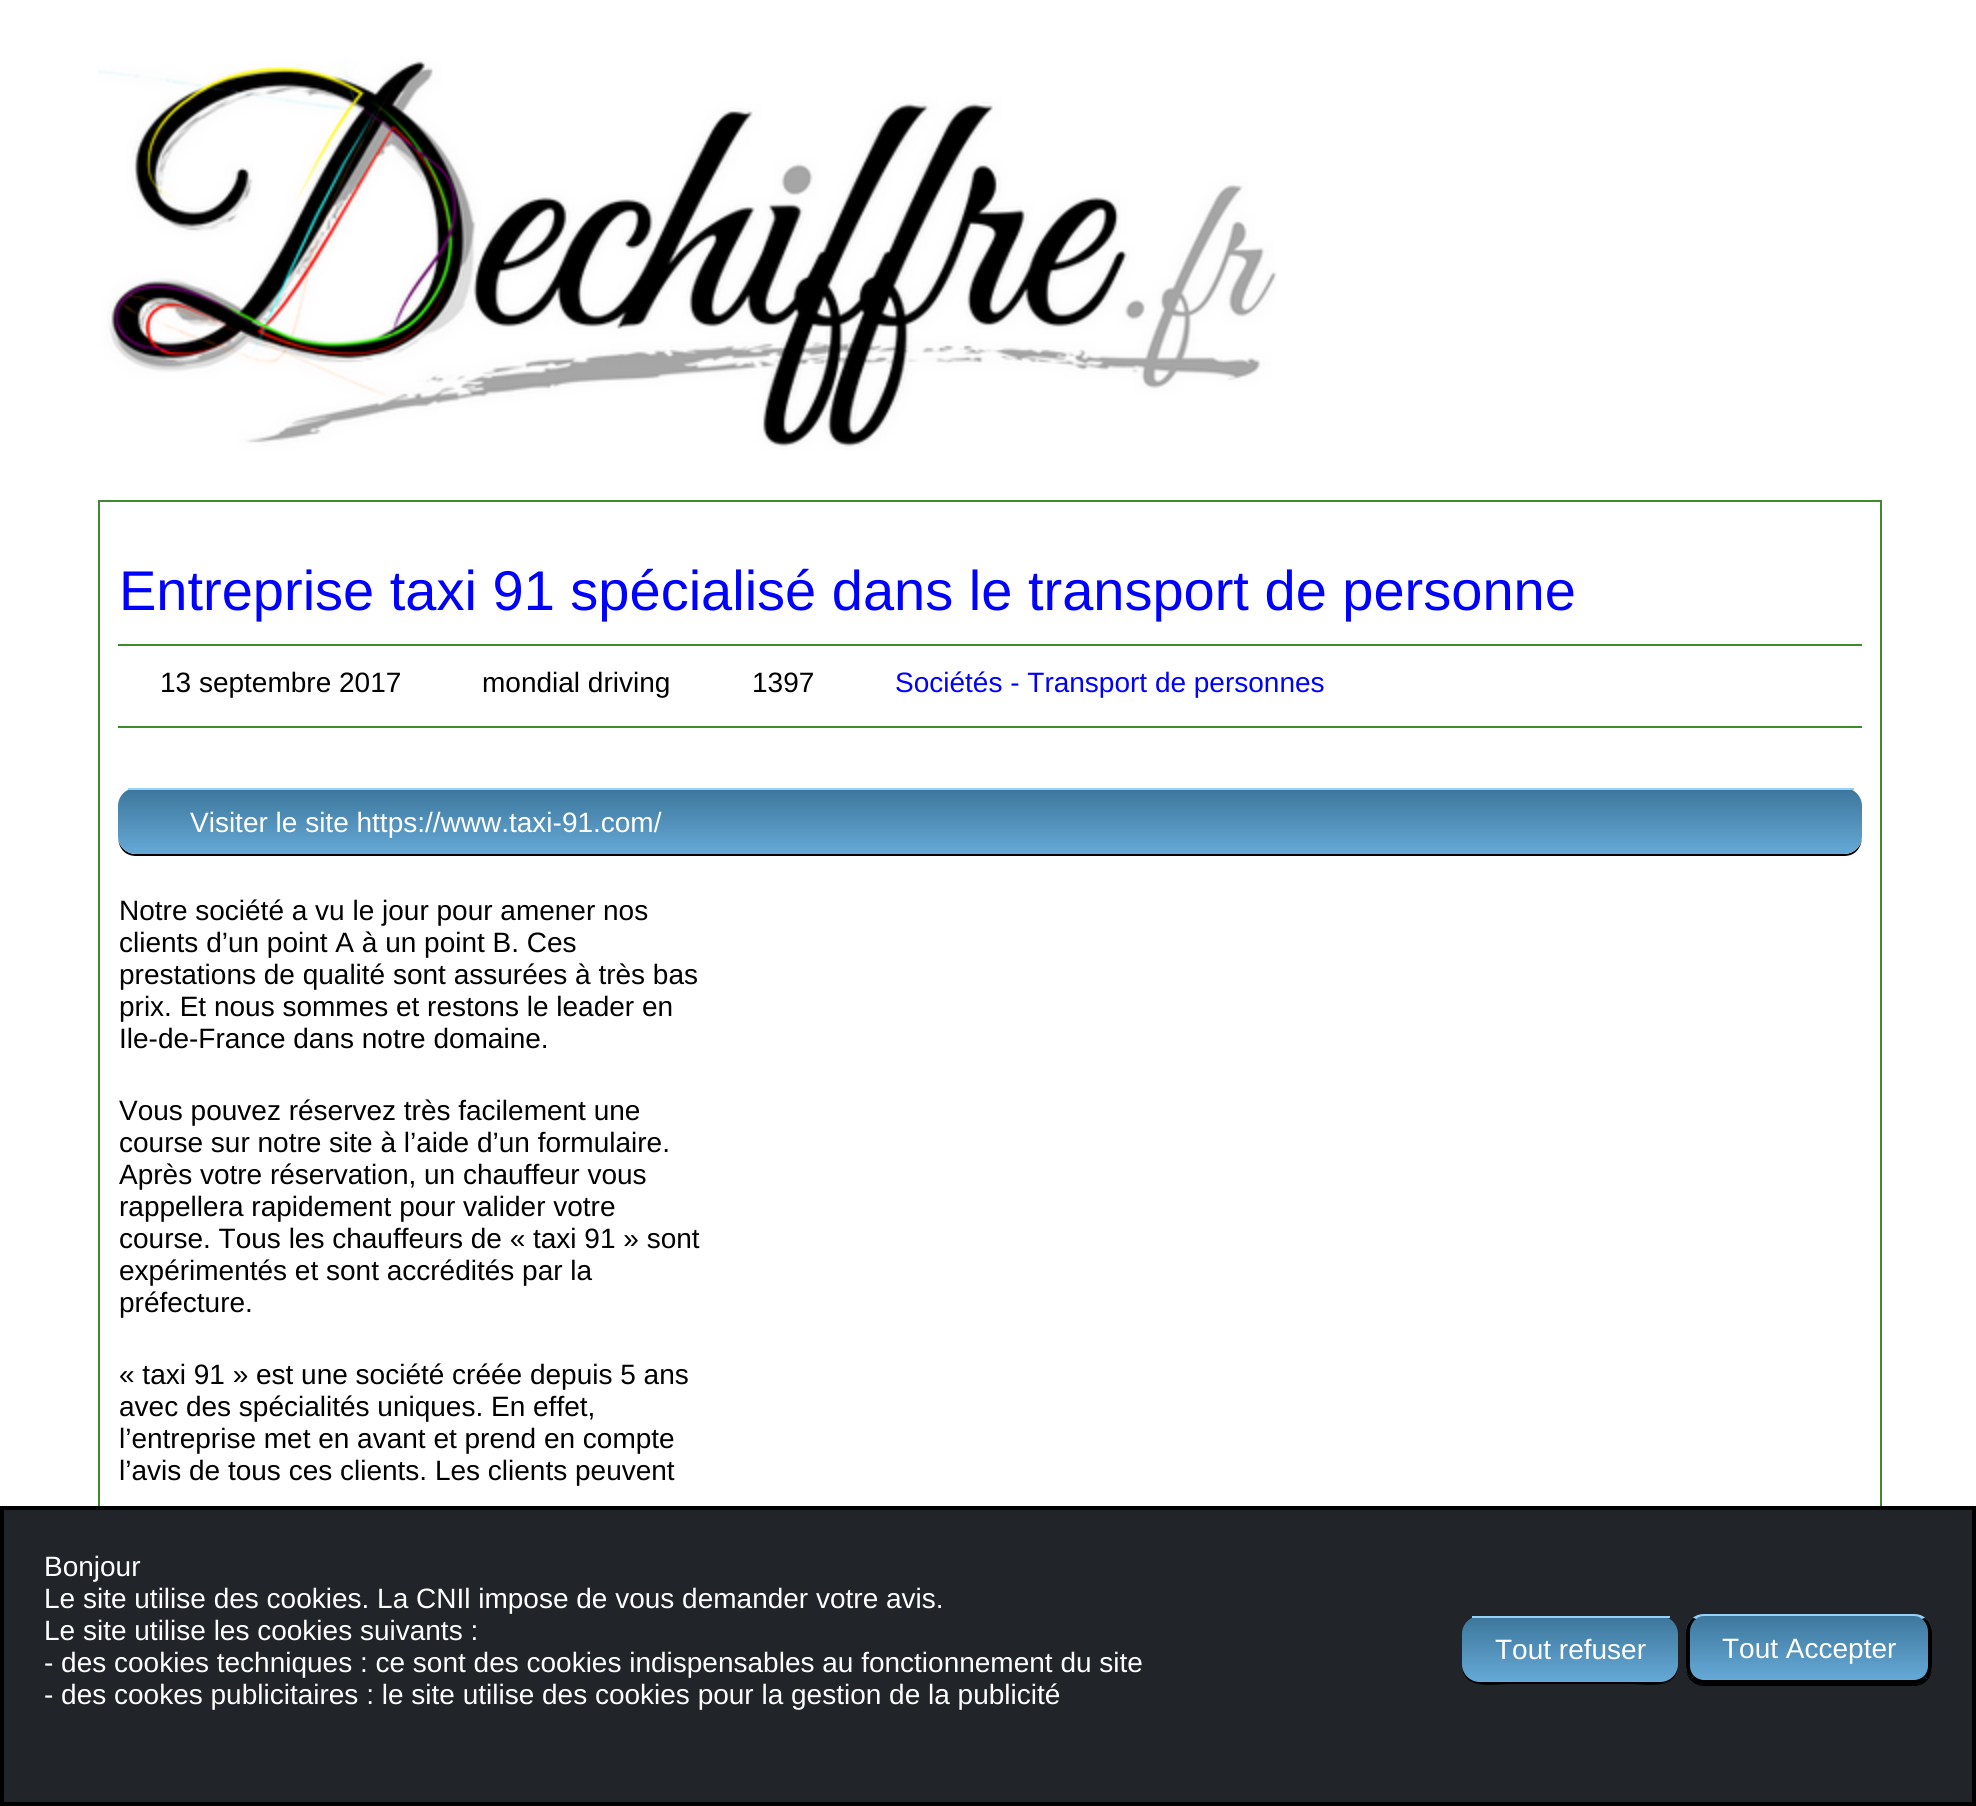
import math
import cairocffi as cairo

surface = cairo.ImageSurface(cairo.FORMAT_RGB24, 1976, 1806)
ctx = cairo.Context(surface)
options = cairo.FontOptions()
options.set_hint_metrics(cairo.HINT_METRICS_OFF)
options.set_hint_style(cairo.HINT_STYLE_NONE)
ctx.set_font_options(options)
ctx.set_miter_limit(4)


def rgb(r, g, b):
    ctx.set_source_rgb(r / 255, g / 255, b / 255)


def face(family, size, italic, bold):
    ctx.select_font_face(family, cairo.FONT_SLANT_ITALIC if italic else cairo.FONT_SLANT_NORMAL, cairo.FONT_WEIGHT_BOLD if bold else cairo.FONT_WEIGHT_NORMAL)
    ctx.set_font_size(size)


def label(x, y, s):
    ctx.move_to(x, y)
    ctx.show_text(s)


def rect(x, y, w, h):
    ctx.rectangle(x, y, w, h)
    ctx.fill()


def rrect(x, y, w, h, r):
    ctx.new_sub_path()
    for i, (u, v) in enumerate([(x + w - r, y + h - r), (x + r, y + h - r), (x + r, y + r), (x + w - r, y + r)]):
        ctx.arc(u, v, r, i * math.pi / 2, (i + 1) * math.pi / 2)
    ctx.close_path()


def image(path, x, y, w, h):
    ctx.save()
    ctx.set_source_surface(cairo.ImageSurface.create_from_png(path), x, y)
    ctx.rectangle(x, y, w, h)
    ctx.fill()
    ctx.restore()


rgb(255, 255, 255)
ctx.paint()
image('image0.png', 98, 58, 1179, 392)
ctx.rectangle(99, 501, 1782, 1276)
rgb(63, 137, 46)
ctx.stroke()
face('Liberation Sans', 56, 0, 0)
rgb(0, 0, 255)
label(119, 610, 'Entreprise taxi 91 spécialisé dans le transport de personne')
rgb(63, 137, 46)
rect(118, 644, 1744, 2)
rect(118, 726, 1744, 2)
face('Liberation Sans', 28, 0, 0)
rgb(0, 0, 0)
label(160, 692, '13 septembre 2017')
label(482, 692, 'mondial driving')
label(752, 692, '1397')
rgb(0, 0, 255)
label(895, 692, 'Sociétés - Transport de personnes')
rgb(0, 0, 0)
ctx.new_path()
ctx.move_to(118, 836)
ctx.curve_to(118, 847, 124, 856, 136, 856)
ctx.line_to(1844, 856)
ctx.curve_to(1856, 856, 1862, 847, 1862, 836)
ctx.curve_to(1862, 846, 1854, 854, 1844, 854)
ctx.line_to(136, 854)
ctx.curve_to(126, 854, 118, 846, 118, 836)
ctx.close_path()
ctx.fill()
ctx.save()
rrect(118, 788, 1744, 66, 18)
ctx.clip()
gradient = cairo.LinearGradient(990, 790, 990, 854)
gradient.add_color_stop_rgba(0, 0.243, 0.467, 0.616, 1)
gradient.add_color_stop_rgba(1, 0.396, 0.663, 0.843, 1)
ctx.set_source(gradient)
ctx.new_path()
ctx.move_to(118, 790)
ctx.line_to(1862, 790)
ctx.line_to(1862, 836)
ctx.curve_to(1862, 846, 1854, 854, 1844, 854)
ctx.line_to(136, 854)
ctx.curve_to(126, 854, 118, 846, 118, 836)
ctx.close_path()
ctx.fill()
ctx.restore()
rgb(150, 209, 248)
rect(128, 788, 1726, 2)
rgb(255, 255, 255)
label(190, 832, 'Visiter le site https://www.taxi-91.com/')
rgb(0, 0, 0)
label(119, 920, 'Notre société a vu le jour pour amener nos')
label(119, 952, 'clients d’un point A à un point B. Ces')
label(119, 984, 'prestations de qualité sont assurées à très bas')
label(119, 1016, 'prix. Et nous sommes et restons le leader en')
label(119, 1048, 'Ile-de-France dans notre domaine.')
label(119, 1120, 'Vous pouvez réservez très facilement une')
label(119, 1152, 'course sur notre site à l’aide d’un formulaire.')
label(119, 1184, 'Après votre réservation, un chauffeur vous')
label(119, 1216, 'rappellera rapidement pour valider votre')
label(119, 1248, 'course. Tous les chauffeurs de « taxi 91 » sont')
label(119, 1280, 'expérimentés et sont accrédités par la')
label(119, 1312, 'préfecture.')
label(119, 1384, '« taxi 91 » est une société créée depuis 5 ans')
label(119, 1416, 'avec des spécialités uniques. En effet,')
label(119, 1448, 'l’entreprise met en avant et prend en compte')
label(119, 1480, 'l’avis de tous ces clients. Les clients peuvent')
rgb(33, 37, 41)
ctx.rectangle(2, 1508, 1972, 296)
ctx.fill_preserve()
rgb(0, 0, 0)
ctx.set_line_width(4)
ctx.stroke()
rgb(255, 255, 255)
label(44, 1576, 'Bonjour')
label(44, 1608, 'Le site utilise des cookies. La CNIl impose de vous demander votre avis.')
label(44, 1640, 'Le site utilise les cookies suivants :')
label(44, 1672, '- des cookies techniques : ce sont des cookies indispensables au fonctionnement du site')
label(44, 1704, '- des cookes publicitaires : le site utilise des cookies pour la gestion de la publicité')
rgb(0, 0, 0)
ctx.new_path()
ctx.move_to(1462, 1664)
ctx.curve_to(1462, 1691, 1492, 1684, 1510, 1684)
ctx.line_to(1630, 1684)
ctx.curve_to(1648, 1684, 1678, 1691, 1678, 1664)
ctx.curve_to(1678, 1674, 1670, 1682, 1660, 1682)
ctx.line_to(1480, 1682)
ctx.curve_to(1470, 1682, 1462, 1674, 1462, 1664)
ctx.close_path()
ctx.fill()
ctx.save()
rrect(1462, 1616, 216, 66, 18)
ctx.clip()
gradient = cairo.LinearGradient(1570, 1618, 1570, 1682)
gradient.add_color_stop_rgba(0, 0.243, 0.467, 0.616, 1)
gradient.add_color_stop_rgba(1, 0.396, 0.663, 0.843, 1)
ctx.set_source(gradient)
ctx.new_path()
ctx.move_to(1462, 1618)
ctx.line_to(1678, 1618)
ctx.line_to(1678, 1664)
ctx.curve_to(1678, 1674, 1670, 1682, 1660, 1682)
ctx.line_to(1480, 1682)
ctx.curve_to(1470, 1682, 1462, 1674, 1462, 1664)
ctx.close_path()
ctx.fill()
ctx.restore()
rgb(255, 255, 255)
label(1495, 1659, 'Tout refuser')
rgb(150, 209, 248)
rect(1472, 1616, 198, 2)
rgb(0, 0, 0)
ctx.new_path()
ctx.move_to(1686, 1666)
ctx.line_to(1686, 1668)
ctx.curve_to(1686, 1678, 1694, 1686, 1704, 1686)
ctx.line_to(1914, 1686)
ctx.curve_to(1924, 1686, 1932, 1678, 1932, 1668)
ctx.line_to(1932, 1666)
ctx.curve_to(1932, 1676, 1924, 1684, 1914, 1684)
ctx.line_to(1704, 1684)
ctx.curve_to(1694, 1684, 1686, 1676, 1686, 1666)
ctx.close_path()
ctx.fill()
ctx.save()
rrect(1686, 1614, 246, 70, 18)
ctx.clip()
gradient = cairo.LinearGradient(1809, 1616, 1809, 1680)
gradient.add_color_stop_rgba(0, 0.243, 0.467, 0.616, 1)
gradient.add_color_stop_rgba(1, 0.396, 0.663, 0.843, 1)
ctx.set_source(gradient)
rect(1686, 1616, 246, 64)
ctx.restore()
rgb(150, 209, 248)
ctx.new_path()
ctx.move_to(1704, 1614)
ctx.curve_to(1700, 1614, 1696, 1615, 1693, 1618)
ctx.line_to(1696, 1619)
ctx.curve_to(1698, 1617, 1701, 1616, 1704, 1616)
ctx.line_to(1914, 1616)
ctx.curve_to(1917, 1616, 1920, 1617, 1922, 1619)
ctx.line_to(1925, 1618)
ctx.curve_to(1922, 1615, 1918, 1614, 1914, 1614)
ctx.close_path()
ctx.fill()
rgb(0, 0, 0)
ctx.new_path()
ctx.move_to(1932, 1666)
ctx.line_to(1932, 1632)
ctx.curve_to(1932, 1626, 1929, 1621, 1925, 1618)
ctx.line_to(1922, 1619)
ctx.curve_to(1926, 1622, 1928, 1627, 1928, 1632)
ctx.line_to(1928, 1666)
ctx.curve_to(1928, 1670, 1926, 1674, 1924, 1676)
ctx.line_to(1927, 1679)
ctx.curve_to(1930, 1676, 1932, 1671, 1932, 1666)
ctx.close_path()
ctx.fill()
ctx.new_path()
ctx.move_to(1704, 1684)
ctx.line_to(1914, 1684)
ctx.curve_to(1919, 1684, 1924, 1682, 1927, 1679)
ctx.line_to(1924, 1676)
ctx.curve_to(1922, 1678, 1918, 1680, 1914, 1680)
ctx.line_to(1704, 1680)
ctx.curve_to(1700, 1680, 1696, 1678, 1694, 1676)
ctx.line_to(1691, 1679)
ctx.curve_to(1694, 1682, 1699, 1684, 1704, 1684)
ctx.close_path()
ctx.fill()
ctx.new_path()
ctx.move_to(1686, 1632)
ctx.line_to(1686, 1666)
ctx.curve_to(1686, 1671, 1688, 1676, 1691, 1679)
ctx.line_to(1694, 1676)
ctx.curve_to(1692, 1674, 1690, 1670, 1690, 1666)
ctx.line_to(1690, 1632)
ctx.curve_to(1690, 1627, 1692, 1622, 1696, 1619)
ctx.line_to(1693, 1618)
ctx.curve_to(1689, 1621, 1686, 1626, 1686, 1632)
ctx.close_path()
ctx.fill()
rgb(255, 255, 255)
label(1722, 1658, 'Tout Accepter')
surface.write_to_png('render.png')
